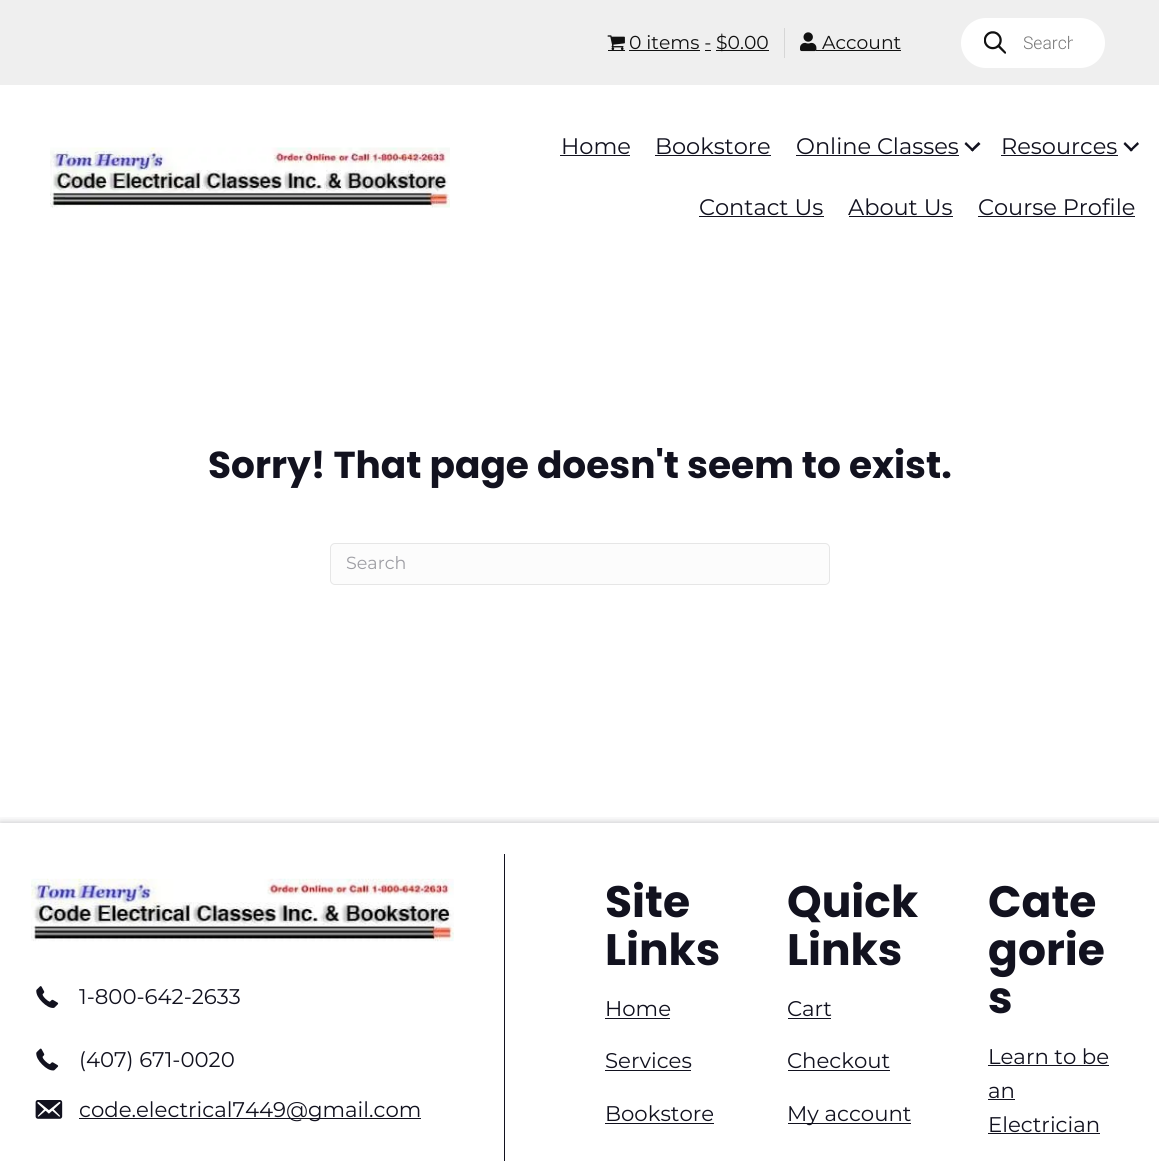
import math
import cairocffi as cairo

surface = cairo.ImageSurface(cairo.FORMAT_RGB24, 1159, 1161)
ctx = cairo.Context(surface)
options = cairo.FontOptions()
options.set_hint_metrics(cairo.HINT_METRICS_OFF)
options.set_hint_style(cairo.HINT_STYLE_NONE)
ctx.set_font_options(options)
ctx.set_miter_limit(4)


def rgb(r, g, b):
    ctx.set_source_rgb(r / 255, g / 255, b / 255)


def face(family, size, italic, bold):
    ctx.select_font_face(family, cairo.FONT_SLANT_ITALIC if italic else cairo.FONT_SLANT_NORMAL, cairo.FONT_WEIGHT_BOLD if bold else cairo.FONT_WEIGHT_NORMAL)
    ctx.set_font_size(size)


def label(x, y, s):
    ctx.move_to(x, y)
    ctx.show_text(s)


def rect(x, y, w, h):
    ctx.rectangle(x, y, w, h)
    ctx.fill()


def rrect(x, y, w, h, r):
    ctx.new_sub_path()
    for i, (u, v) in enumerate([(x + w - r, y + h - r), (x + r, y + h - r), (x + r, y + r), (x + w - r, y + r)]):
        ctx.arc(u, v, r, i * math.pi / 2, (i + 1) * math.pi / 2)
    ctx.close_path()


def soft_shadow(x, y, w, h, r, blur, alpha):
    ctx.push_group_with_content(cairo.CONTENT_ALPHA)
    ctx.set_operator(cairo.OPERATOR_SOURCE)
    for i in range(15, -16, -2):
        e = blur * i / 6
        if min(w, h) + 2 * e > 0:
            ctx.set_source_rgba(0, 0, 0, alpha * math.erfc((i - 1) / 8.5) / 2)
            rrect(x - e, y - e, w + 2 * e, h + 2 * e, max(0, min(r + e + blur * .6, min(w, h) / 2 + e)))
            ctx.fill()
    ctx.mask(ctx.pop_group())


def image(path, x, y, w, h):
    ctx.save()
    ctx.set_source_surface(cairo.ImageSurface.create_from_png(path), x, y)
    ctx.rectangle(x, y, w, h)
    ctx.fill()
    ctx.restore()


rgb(255, 255, 255)
ctx.paint()
rgb(239, 239, 239)
rect(0, 0, 1159, 85)
image('image0.png', 607, 35, 18, 15)
face('Montserrat', 18.75, 0, 0)
rgb(17, 17, 17)
label(629, 49, '0 items -')
rect(608, 50, 17, 1)
rect(629, 50, 71, 1)
rect(705, 50, 6, 1)
rect(716, 50, 53, 1)
label(716, 49, '$0.00')
rgb(214, 214, 214)
rect(784, 28, 1, 30)
image('image1.png', 800, 32, 17, 20)
rgb(17, 17, 17)
label(822, 49, 'Account')
rect(816, 50, 85, 1)
rgb(255, 255, 255)
rrect(961, 18, 144, 50, 25)
ctx.fill()
image('image2.png', 984, 31, 22, 23)
ctx.save()
ctx.rectangle(1024, 33, 49, 20)
ctx.clip()
face('Roboto Light', 17.5, 0, 0)
rgb(119, 119, 119)
label(1023, 49, 'Search')
ctx.restore()
image('image3.png', 50, 147, 400, 61)
face('Montserrat', 22.5, 0, 0)
rgb(18, 18, 31)
label(561, 154, 'Home')
rect(560, 155, 70, 1)
label(655, 154, 'Bookstore')
rect(655, 155, 116, 1)
label(796, 154, 'Online Classes')
rect(796, 155, 163, 1)
ctx.new_path()
ctx.move_to(978.5, 142)
ctx.line_to(980.5, 144)
ctx.line_to(972.5, 151.5)
ctx.line_to(970.5, 150)
ctx.close_path()
ctx.fill()
ctx.new_path()
ctx.move_to(966, 142)
ctx.line_to(974, 150)
ctx.line_to(972.5, 151.5)
ctx.line_to(964.5, 144)
ctx.close_path()
ctx.fill()
label(1001, 154, 'Resources')
rect(1001, 155, 117, 1)
ctx.new_path()
ctx.move_to(1137.5, 142)
ctx.line_to(1139, 144)
ctx.line_to(1131, 151.5)
ctx.line_to(1129.5, 150)
ctx.close_path()
ctx.fill()
ctx.new_path()
ctx.move_to(1125, 142)
ctx.line_to(1133, 150)
ctx.line_to(1131, 151.5)
ctx.line_to(1123.5, 144)
ctx.close_path()
ctx.fill()
label(699, 215, 'Contact Us')
rect(699, 216, 125, 1)
label(848, 215, 'About Us')
rect(849, 216, 104, 1)
label(978, 215, 'Course Profile')
rect(978, 216, 157, 1)
face('Poppins', 37.5, 0, 1)
label(208, 478, 'Sorry! That page doesn\'t seem to exist.')
rgb(252, 252, 252)
rrect(330.5, 543.5, 499, 41, 4.5)
ctx.fill_preserve()
rgb(230, 230, 230)
ctx.set_line_width(1)
ctx.stroke()
face('Montserrat', 17.5, 0, 0)
rgb(158, 158, 164)
label(346, 569, 'Search')
ctx.save()
ctx.rectangle(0, 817, 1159, 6)
ctx.clip()
rgb(18, 18, 31)
soft_shadow(0, 825, 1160, 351, 0, 5, 0.41)
ctx.restore()
rgb(18, 18, 31)
rect(504, 854, 1, 307)
image('image4.png', 31, 878, 423, 64)
image('image5.png', 36, 986, 23, 22)
face('Montserrat', 21.25, 0, 0)
label(79, 1004, '1-800-642-2633')
image('image6.png', 36, 1048, 23, 23)
label(79, 1067, '(407) 671-0020')
image('image7.png', 35, 1100, 28, 19)
rect(79, 1118, 342, 1)
label(79, 1117, 'code.electrical7449@gmail.com')
face('Poppins', 44, 0, 1)
label(605, 917, 'Site')
label(605, 965, 'Links')
face('Montserrat', 21.25, 0, 0)
label(605, 1016, 'Home')
rect(605, 1018, 65, 1)
label(605, 1068, 'Services')
rect(605, 1070, 86, 1)
label(605, 1121, 'Bookstore')
rect(605, 1123, 109, 1)
face('Poppins', 44, 0, 1)
label(787, 917, 'Quick')
label(787, 965, 'Links')
face('Montserrat', 21.25, 0, 0)
label(787, 1016, 'Cart')
rect(788, 1018, 43, 1)
label(787, 1068, 'Checkout')
rect(788, 1070, 102, 1)
rect(788, 1123, 123, 1)
label(787, 1121, 'My account')
face('Poppins', 44, 0, 1)
label(988, 917, 'Cate')
label(988, 965, 'gorie')
label(988, 1013, 's')
face('Montserrat', 21.25, 0, 0)
label(988, 1064, 'Learn to be')
rect(988, 1065, 121, 1)
label(988, 1098, 'an')
rect(988, 1099, 27, 1)
label(988, 1132, 'Electrician')
rect(988, 1133, 112, 1)
surface.write_to_png('render.png')
